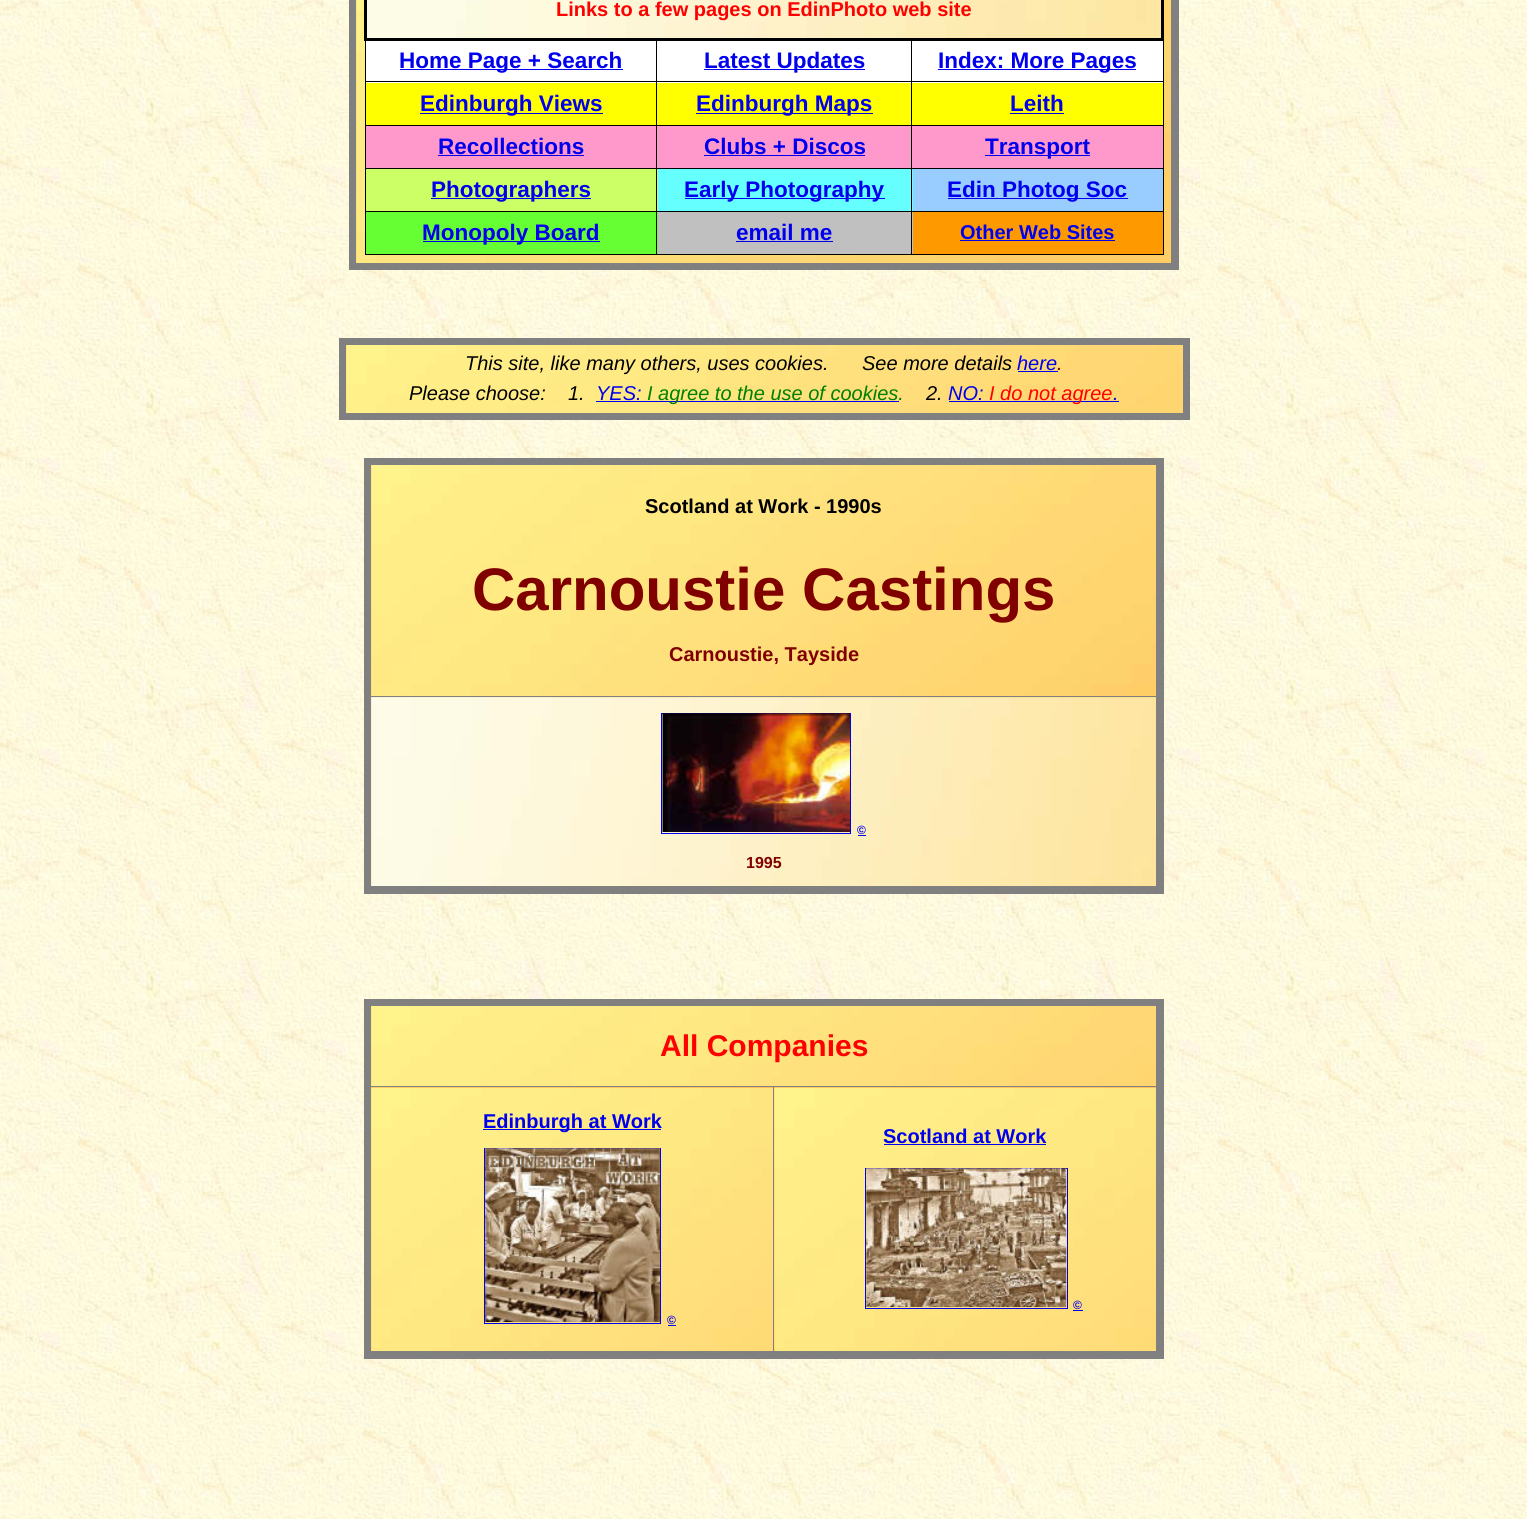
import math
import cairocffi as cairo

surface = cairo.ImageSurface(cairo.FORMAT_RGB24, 1527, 1519)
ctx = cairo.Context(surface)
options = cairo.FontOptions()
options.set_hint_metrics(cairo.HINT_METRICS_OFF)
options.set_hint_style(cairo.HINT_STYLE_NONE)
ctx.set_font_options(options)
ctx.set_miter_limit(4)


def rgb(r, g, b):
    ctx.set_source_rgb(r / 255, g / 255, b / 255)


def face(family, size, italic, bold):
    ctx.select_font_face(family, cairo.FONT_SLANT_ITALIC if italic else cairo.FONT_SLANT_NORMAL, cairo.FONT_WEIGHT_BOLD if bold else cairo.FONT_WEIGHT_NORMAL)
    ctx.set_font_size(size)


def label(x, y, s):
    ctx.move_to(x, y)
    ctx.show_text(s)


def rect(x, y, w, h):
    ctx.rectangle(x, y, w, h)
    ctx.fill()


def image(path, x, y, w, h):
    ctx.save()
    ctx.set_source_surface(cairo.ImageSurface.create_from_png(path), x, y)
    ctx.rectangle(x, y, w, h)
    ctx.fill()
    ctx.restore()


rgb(255, 255, 255)
ctx.paint()
image('image0.png', 0, 0, 1527, 1519)
rgb(128, 128, 128)
rect(1171, 0, 8, 270)
rect(349, 263, 830, 7)
rect(349, 0, 7, 270)
image('image1.png', 356, 0, 815, 263)
image('image2.png', 367, 0, 794, 38)
rgb(255, 255, 255)
rect(366, 41, 797, 42)
rgb(0, 0, 0)
rect(911, 81, 253, 1)
rect(911, 125, 253, 1)
rect(911, 168, 253, 1)
rect(911, 211, 253, 1)
rect(1163, 211, 1, 44)
rect(1163, 168, 1, 45)
rect(1163, 125, 1, 44)
rect(1163, 38, 1, 88)
rect(1161, 0, 3, 40)
rgb(255, 255, 0)
rect(366, 83, 797, 42)
rgb(255, 153, 204)
rect(366, 126, 797, 42)
rgb(102, 255, 255)
rect(658, 169, 255, 42)
rgb(192, 192, 192)
rect(658, 212, 255, 42)
rgb(0, 0, 0)
rect(911, 254, 253, 1)
rect(911, 211, 1, 44)
rect(656, 211, 257, 1)
rect(911, 168, 1, 45)
rect(656, 168, 257, 1)
rect(911, 125, 1, 44)
rect(656, 125, 257, 1)
rect(911, 81, 1, 45)
rect(656, 81, 257, 1)
rgb(204, 255, 102)
rect(366, 169, 292, 42)
rgb(102, 255, 51)
rect(366, 212, 292, 42)
rgb(0, 0, 0)
rect(656, 254, 257, 1)
rect(656, 211, 1, 44)
rect(365, 211, 293, 1)
rect(656, 168, 1, 45)
rect(365, 168, 293, 1)
rect(656, 125, 1, 44)
rect(365, 125, 293, 1)
rect(656, 81, 1, 45)
rect(365, 81, 293, 1)
rect(656, 38, 1, 45)
rect(911, 38, 1, 45)
rect(365, 254, 293, 1)
rect(365, 211, 1, 44)
rect(365, 168, 1, 45)
rect(365, 125, 1, 44)
rect(365, 38, 1, 88)
rect(364, 38, 800, 3)
rect(364, 0, 3, 40)
face('Liberation Sans', 20, 0, 1)
rgb(255, 0, 0)
label(556, 16, 'Links to a few pages on EdinPhoto web site')
rgb(0, 0, 238)
rect(400, 69, 223, 1)
face('Liberation Sans', 22.5, 0, 1)
label(399, 68, 'Home Page + Search')
rect(704, 69, 161, 1)
label(704, 68, 'Latest Updates')
rect(938, 69, 198, 1)
label(938, 68, 'Index: More Pages')
rect(420, 113, 183, 1)
label(420, 111, 'Edinburgh Views')
rect(696, 113, 177, 1)
label(696, 111, 'Edinburgh Maps')
label(1010, 111, 'Leith')
rect(1010, 113, 54, 1)
label(438, 154, 'Recollections')
rect(438, 155, 146, 1)
label(704, 154, 'Clubs + Discos')
rect(704, 155, 161, 1)
rect(985, 155, 105, 1)
label(985, 154, 'Transport')
rect(431, 198, 160, 1)
label(431, 197, 'Photographers')
rect(685, 198, 200, 1)
label(684, 197, 'Early Photography')
rgb(153, 204, 255)
rect(913, 169, 250, 42)
rgb(0, 0, 238)
rect(948, 198, 180, 1)
label(947, 197, 'Edin Photog Soc')
rect(423, 241, 177, 1)
label(422, 240, 'Monopoly Board')
label(736, 240, 'email me')
rect(736, 241, 97, 1)
rgb(255, 153, 0)
rect(913, 212, 250, 42)
face('Liberation Sans', 20, 0, 1)
rgb(0, 0, 238)
label(960, 239, 'Other Web Sites')
rect(960, 240, 155, 1)
rgb(128, 128, 128)
rect(339, 338, 851, 7)
rect(1183, 338, 7, 82)
rect(339, 413, 851, 7)
rect(339, 338, 7, 82)
image('image3.png', 346, 345, 837, 68)
face('Liberation Sans', 20, 1, 0)
rgb(0, 0, 0)
label(465, 370, 'This site, like many others, uses cookies.')
label(862, 370, 'See more details')
rgb(0, 0, 238)
label(1017, 370, 'here')
rgb(128, 0, 0)
label(1057, 370, '.')
rgb(0, 0, 238)
rect(1018, 371, 40, 1)
rgb(0, 0, 0)
label(409, 400, 'Please choose:    1.')
rgb(0, 0, 238)
label(596, 400, 'YES:')
rect(596, 401, 303, 1)
rgb(0, 128, 0)
label(647, 400, 'I agree to the use of cookies.')
rgb(0, 0, 0)
label(926, 400, '2.')
rgb(0, 0, 238)
label(948, 400, 'NO:')
rect(949, 401, 170, 1)
rgb(255, 0, 0)
label(989, 400, 'I do not agree')
rgb(0, 0, 238)
label(1113, 400, '.')
rgb(128, 128, 128)
rect(364, 458, 800, 7)
rect(368, 696, 793, 1)
rect(1156, 458, 8, 436)
rect(364, 886, 800, 8)
rect(364, 458, 7, 436)
image('image4.png', 371, 465, 785, 231)
face('Liberation Sans', 20, 0, 1)
rgb(0, 0, 0)
label(645, 513, 'Scotland at Work - 1990s')
face('Liberation Sans', 60, 0, 1)
rgb(128, 0, 0)
label(472, 610, 'Carnoustie Castings')
face('Liberation Sans', 20, 0, 1)
label(669, 661, 'Carnoustie, Tayside')
image('image5.png', 371, 697, 785, 189)
ctx.rectangle(661.5, 713.5, 189, 120)
rgb(0, 0, 238)
ctx.set_line_width(1)
ctx.stroke()
image('image6.png', 662, 713, 188, 119)
face('Liberation Sans', 12, 0, 1)
label(857, 834, '©')
rect(858, 835, 8, 1)
face('Liberation Sans', 16, 0, 1)
rgb(128, 0, 0)
label(746, 868, '1995')
rgb(128, 128, 128)
rect(364, 999, 800, 7)
rect(773, 1086, 388, 1)
rect(1156, 999, 8, 360)
rect(773, 1086, 1, 270)
rect(364, 1351, 800, 8)
rect(368, 1086, 406, 1)
rect(364, 999, 7, 360)
image('image7.png', 371, 1006, 785, 80)
face('Liberation Sans', 30, 0, 1)
rgb(255, 0, 0)
label(660, 1056, 'All Companies')
image('image8.png', 371, 1087, 402, 264)
rgb(0, 0, 238)
rect(483, 1129, 178, 1)
face('Liberation Sans', 20, 0, 1)
label(483, 1128, 'Edinburgh at Work')
ctx.rectangle(484.5, 1148.5, 176, 175)
ctx.stroke()
image('image9.png', 485, 1148, 175, 174)
face('Liberation Sans', 12, 0, 1)
label(667, 1324, '©')
rect(668, 1325, 8, 1)
image('image10.png', 774, 1087, 382, 264)
face('Liberation Sans', 20, 0, 1)
label(883, 1143, 'Scotland at Work')
rect(884, 1144, 162, 1)
ctx.rectangle(865.5, 1168.5, 202, 140)
ctx.stroke()
image('image11.png', 866, 1168, 201, 139)
face('Liberation Sans', 12, 0, 1)
label(1073, 1309, '©')
rect(1073, 1310, 10, 1)
surface.write_to_png('render.png')
